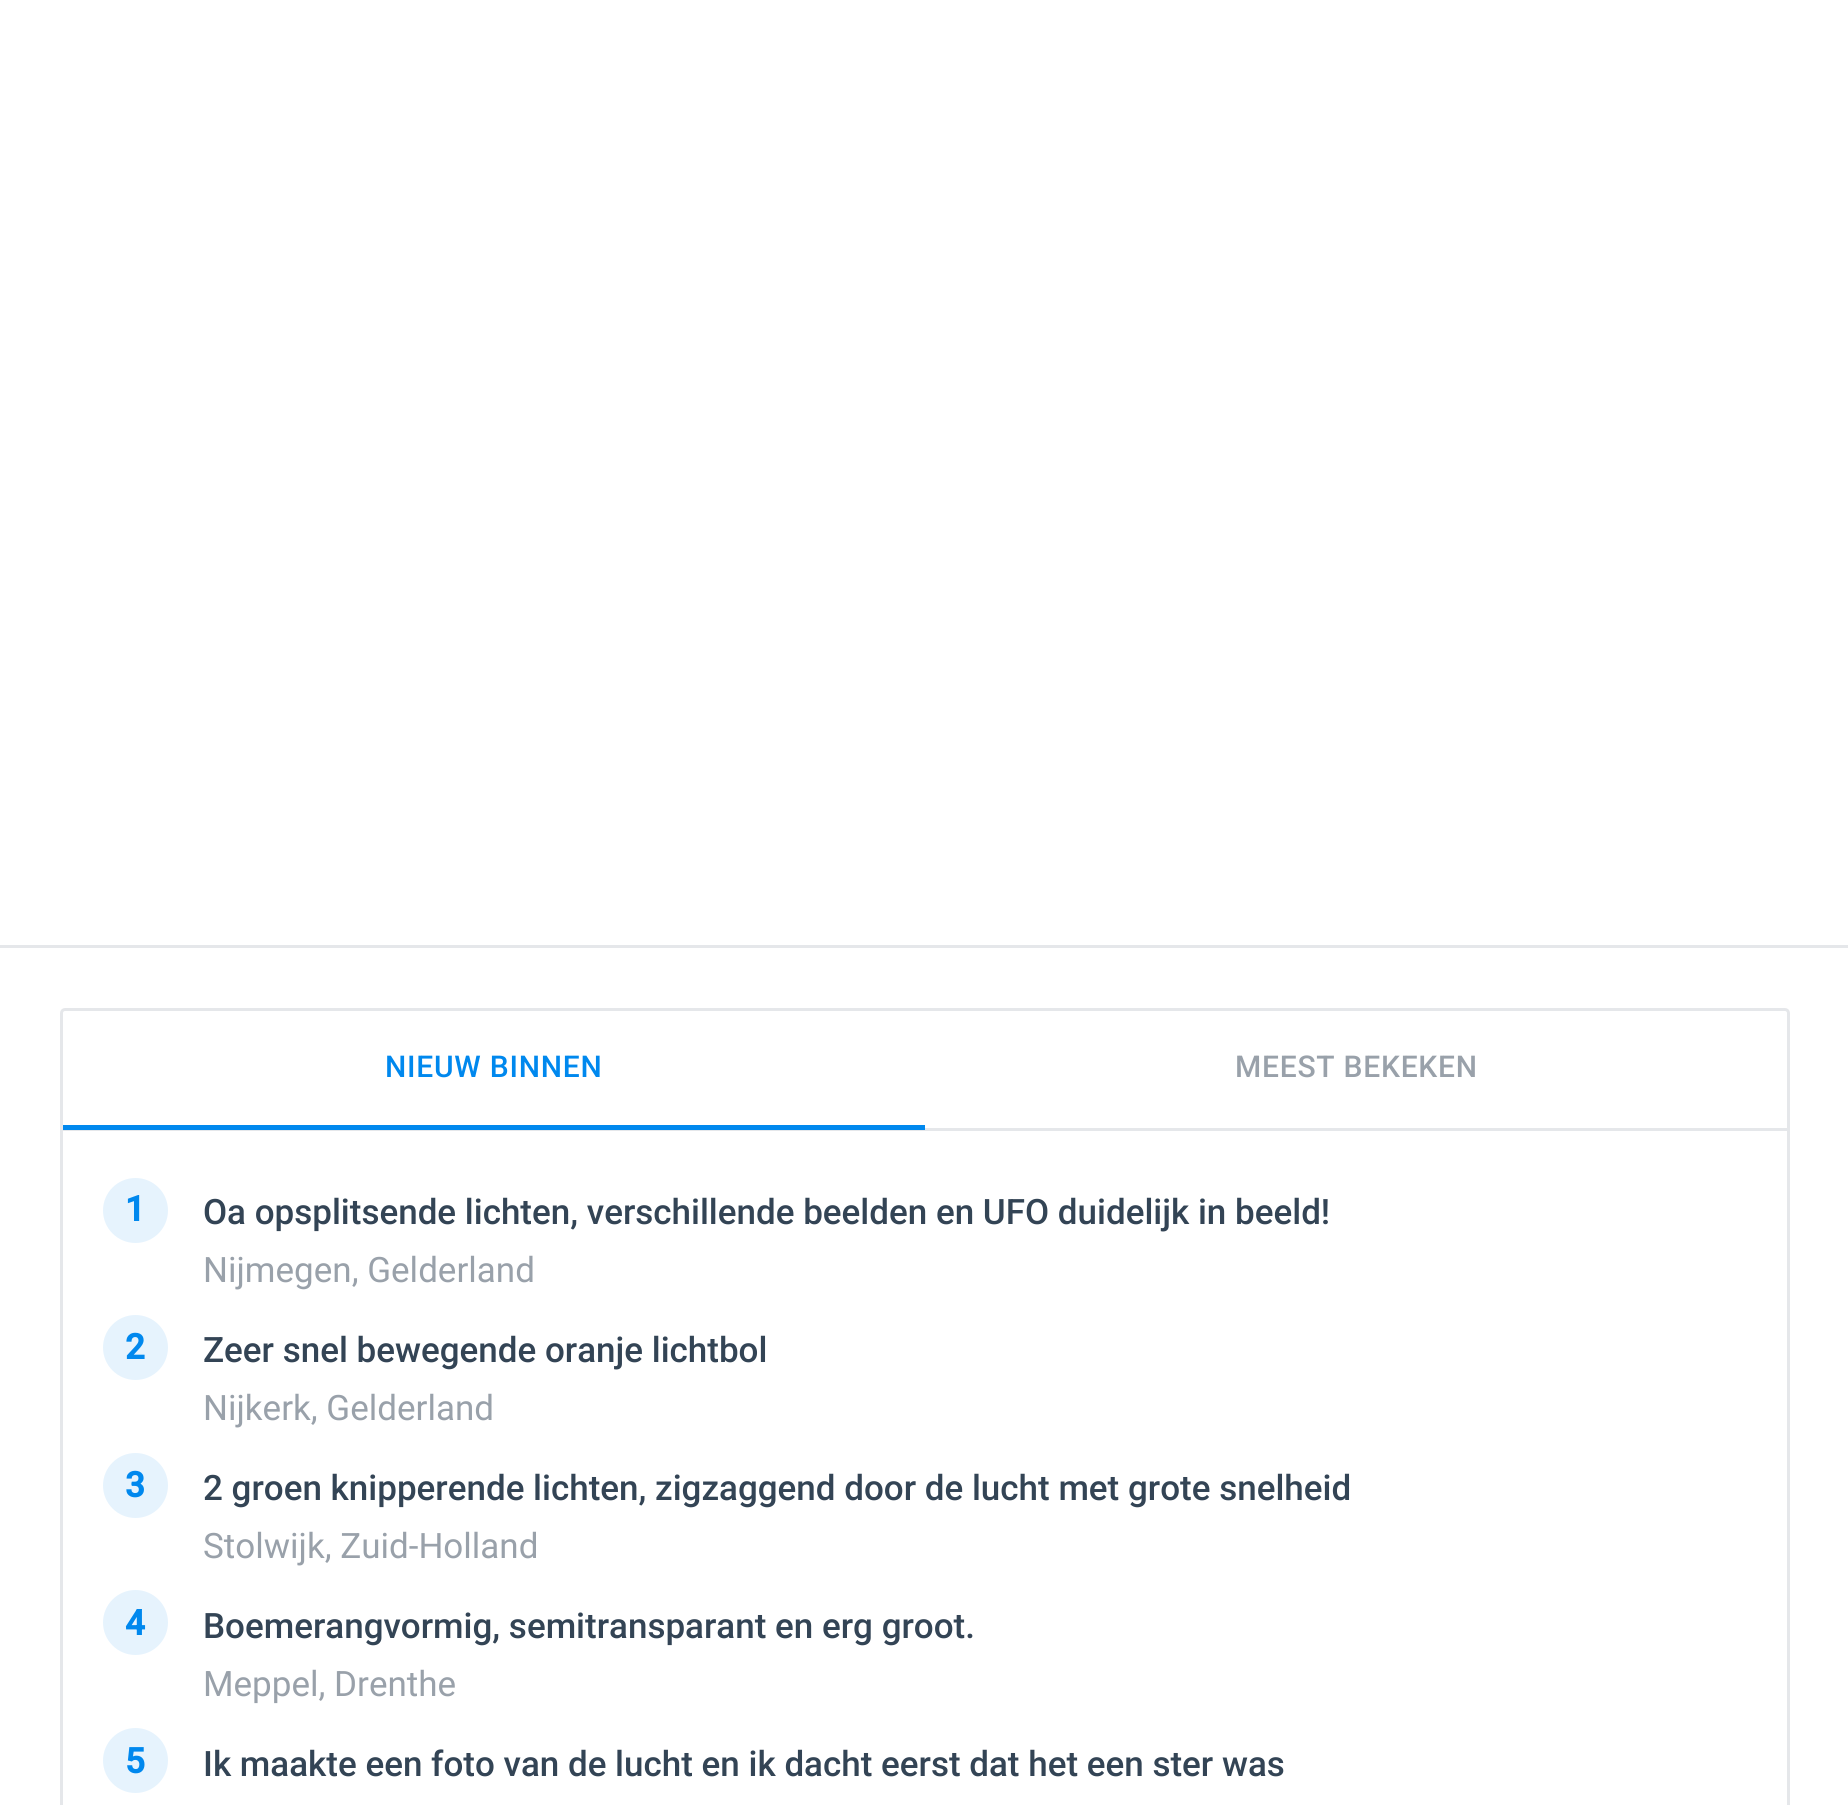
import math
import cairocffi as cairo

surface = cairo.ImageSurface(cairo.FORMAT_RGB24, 1848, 1805)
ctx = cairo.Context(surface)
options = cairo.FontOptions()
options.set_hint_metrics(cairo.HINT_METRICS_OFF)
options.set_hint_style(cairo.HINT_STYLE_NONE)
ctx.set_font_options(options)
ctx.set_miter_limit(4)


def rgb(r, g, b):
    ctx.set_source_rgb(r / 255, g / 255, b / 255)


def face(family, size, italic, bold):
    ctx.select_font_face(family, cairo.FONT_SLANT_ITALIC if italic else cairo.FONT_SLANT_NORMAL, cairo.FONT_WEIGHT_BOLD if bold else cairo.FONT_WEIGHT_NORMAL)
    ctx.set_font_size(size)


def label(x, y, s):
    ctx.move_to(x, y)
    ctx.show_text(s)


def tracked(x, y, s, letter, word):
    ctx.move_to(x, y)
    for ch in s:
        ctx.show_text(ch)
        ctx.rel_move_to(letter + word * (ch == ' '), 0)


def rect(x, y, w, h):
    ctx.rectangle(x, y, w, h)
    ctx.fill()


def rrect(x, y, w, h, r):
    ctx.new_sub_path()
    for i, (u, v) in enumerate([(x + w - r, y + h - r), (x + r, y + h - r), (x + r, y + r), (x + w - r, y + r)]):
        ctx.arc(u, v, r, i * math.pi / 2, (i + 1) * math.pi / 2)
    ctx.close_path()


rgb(255, 255, 255)
ctx.paint()
rgb(229, 231, 234)
rect(0, 945, 1848, 3)
rrect(61.5, 1009.5, 1727, 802, 3.5)
ctx.set_line_width(3)
ctx.stroke()
rect(63, 1128, 1725, 3)
face('Roboto Medium', 30, 0, 0)
rgb(0, 136, 238)
tracked(385, 1077, 'NIEUW BINNEN', 0.75, 0)
rect(63, 1125, 862, 5)
rgb(153, 161, 170)
tracked(1235, 1077, 'MEEST BEKEKEN', 0.75, 0)
rgb(230, 243, 253)
ctx.new_path()
ctx.arc(135.5, 1210.5, 32.5, 0, 2 * math.pi)
ctx.fill()
face('Roboto', 35, 0, 1)
rgb(0, 136, 238)
label(125, 1221, '1')
face('Roboto Medium', 35, 0, 0)
rgb(51, 68, 85)
label(203, 1224, 'Oa opsplitsende lichten, verschillende beelden en UFO duidelijk in beeld!')
face('Roboto', 35, 0, 0)
rgb(153, 161, 170)
label(203, 1282, 'Nijmegen, Gelderland')
rgb(230, 243, 253)
ctx.new_path()
ctx.arc(135.5, 1347.5, 32.5, 0, 2 * math.pi)
ctx.fill()
face('Roboto', 35, 0, 1)
rgb(0, 136, 238)
label(125, 1359, '2')
face('Roboto Medium', 35, 0, 0)
rgb(51, 68, 85)
label(203, 1362, 'Zeer snel bewegende oranje lichtbol')
face('Roboto', 35, 0, 0)
rgb(153, 161, 170)
label(203, 1420, 'Nijkerk, Gelderland')
rgb(230, 243, 253)
ctx.new_path()
ctx.arc(135.5, 1485.5, 32.5, 0, 2 * math.pi)
ctx.fill()
face('Roboto', 35, 0, 1)
rgb(0, 136, 238)
label(125, 1497, '3')
face('Roboto Medium', 35, 0, 0)
rgb(51, 68, 85)
label(203, 1500, '2 groen knipperende lichten, zigzaggend door de lucht met grote snelheid')
face('Roboto', 35, 0, 0)
rgb(153, 161, 170)
label(203, 1558, 'Stolwijk, Zuid-Holland')
rgb(230, 243, 253)
ctx.new_path()
ctx.arc(135.5, 1622.5, 32.5, 0, 2 * math.pi)
ctx.fill()
face('Roboto', 35, 0, 1)
rgb(0, 136, 238)
label(125, 1635, '4')
face('Roboto Medium', 35, 0, 0)
rgb(51, 68, 85)
label(203, 1638, 'Boemerangvormig, semitransparant en erg groot.')
face('Roboto', 35, 0, 0)
rgb(153, 161, 170)
label(203, 1696, 'Meppel, Drenthe')
rgb(230, 243, 253)
ctx.new_path()
ctx.arc(135.5, 1760.5, 32.5, 0, 2 * math.pi)
ctx.fill()
face('Roboto', 35, 0, 1)
rgb(0, 136, 238)
label(125, 1773, '5')
face('Roboto Medium', 35, 0, 0)
rgb(51, 68, 85)
label(203, 1776, 'Ik maakte een foto van de lucht en ik dacht eerst dat het een ster was')
surface.write_to_png('render.png')
